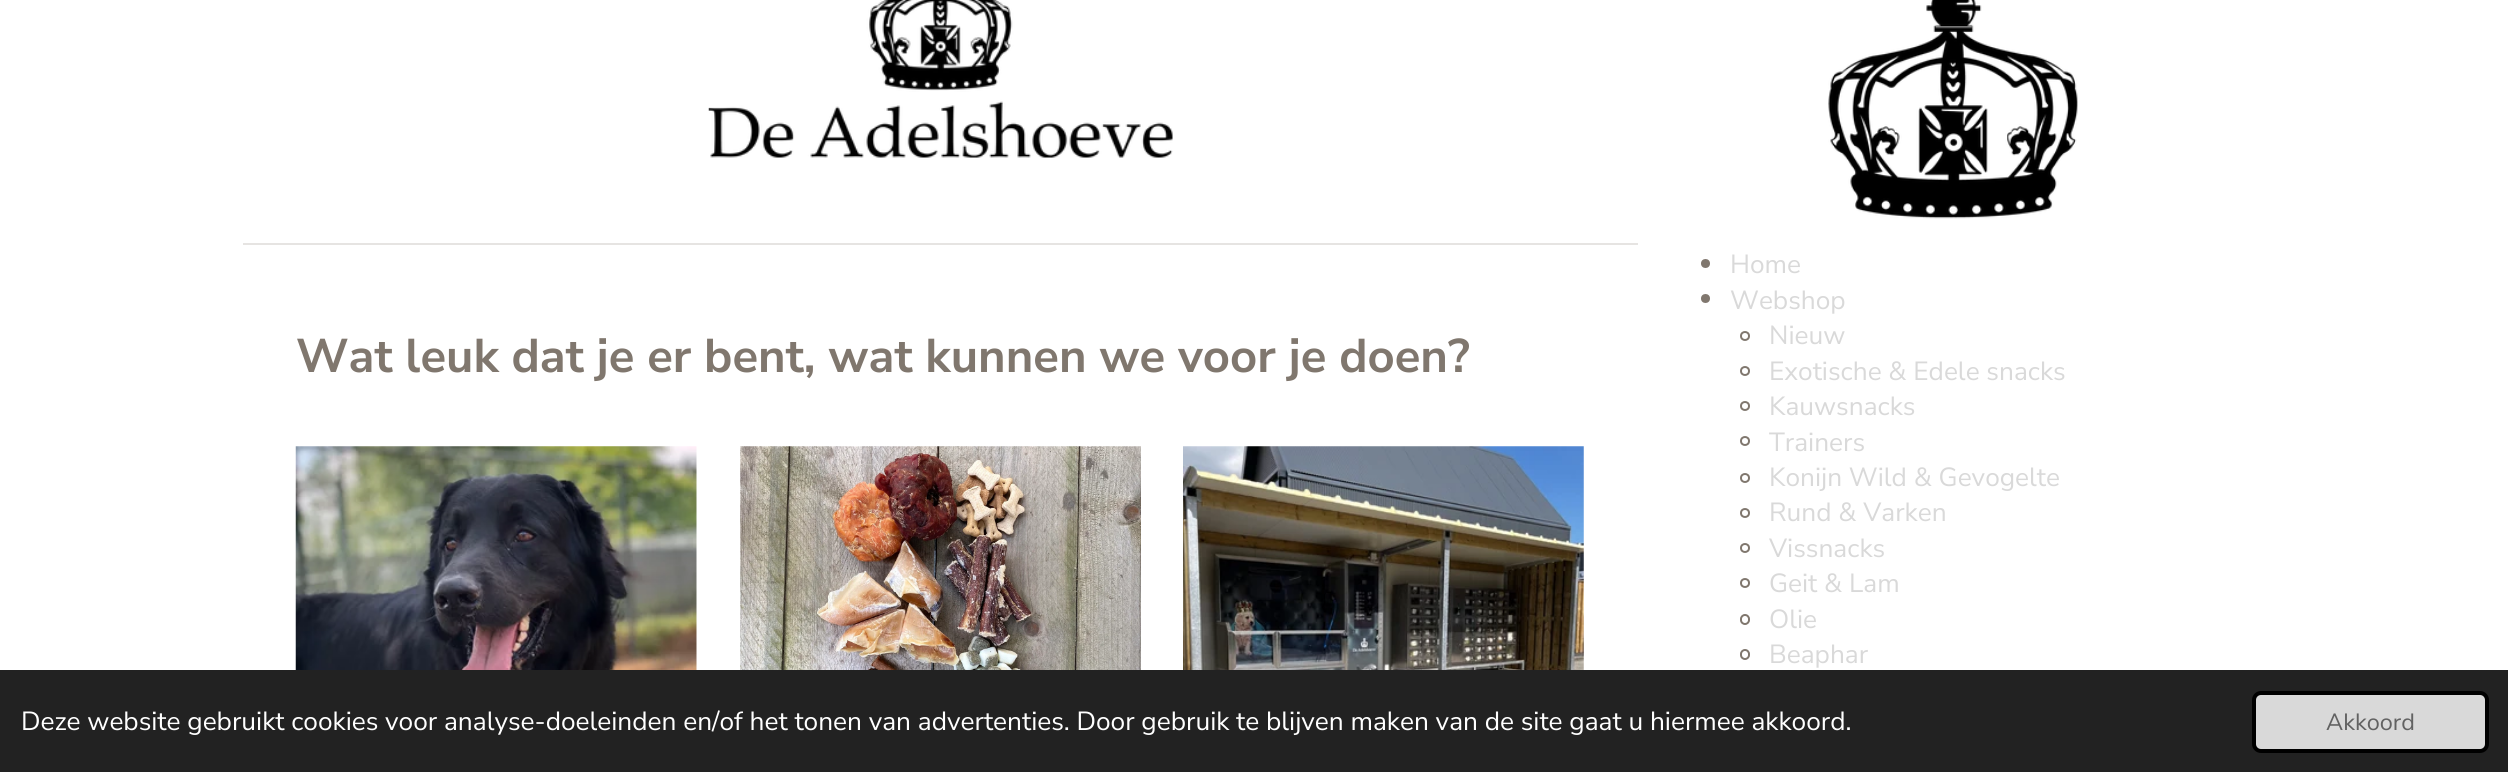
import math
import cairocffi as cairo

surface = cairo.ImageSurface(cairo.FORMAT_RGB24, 2508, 772)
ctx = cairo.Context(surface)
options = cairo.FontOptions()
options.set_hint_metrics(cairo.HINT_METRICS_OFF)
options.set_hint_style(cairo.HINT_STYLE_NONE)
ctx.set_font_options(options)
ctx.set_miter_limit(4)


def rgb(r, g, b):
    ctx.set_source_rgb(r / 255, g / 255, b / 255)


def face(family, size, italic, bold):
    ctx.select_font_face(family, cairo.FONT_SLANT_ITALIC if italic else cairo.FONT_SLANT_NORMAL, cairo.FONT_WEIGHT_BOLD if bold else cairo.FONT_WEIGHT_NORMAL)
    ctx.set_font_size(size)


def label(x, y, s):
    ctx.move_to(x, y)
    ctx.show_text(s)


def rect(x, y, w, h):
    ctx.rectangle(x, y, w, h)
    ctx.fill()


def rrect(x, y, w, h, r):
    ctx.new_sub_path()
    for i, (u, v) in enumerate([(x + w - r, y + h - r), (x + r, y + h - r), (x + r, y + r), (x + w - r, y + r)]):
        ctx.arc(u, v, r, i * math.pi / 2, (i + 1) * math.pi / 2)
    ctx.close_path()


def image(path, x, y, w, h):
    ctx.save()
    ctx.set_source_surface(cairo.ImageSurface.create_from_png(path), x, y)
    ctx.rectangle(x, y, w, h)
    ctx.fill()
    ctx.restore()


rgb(255, 255, 255)
ctx.paint()
image('image0.png', 708, 0, 465, 158)
rgb(230, 228, 226)
rect(243, 243, 1395, 2)
face('Nunito Sans', 47.25, 0, 1)
rgb(128, 119, 110)
label(296, 372, 'Wat leuk dat je er bent, wat kunnen we voor je doen?')
image('image1.png', 295, 446, 402, 224)
image('image2.png', 740, 446, 401, 224)
image('image3.png', 1183, 446, 401, 224)
image('image4.png', 1828, 0, 250, 219)
ctx.arc(1705.5, 263.5, 4.5, 0, 2 * math.pi)
ctx.fill()
face('Nunito Sans', 26.25, 0, 0)
rgb(217, 217, 217)
label(1730, 273, 'Home')
rgb(128, 119, 110)
ctx.new_path()
ctx.arc(1705.5, 298.5, 4.5, 0, 2 * math.pi)
ctx.fill()
rgb(217, 217, 217)
label(1730, 309, 'Webshop')
ctx.new_path()
ctx.arc(1745, 336, 4, 0, 2 * math.pi)
rgb(128, 119, 110)
ctx.stroke()
rgb(217, 217, 217)
label(1769, 344, 'Nieuw')
ctx.new_path()
ctx.arc(1745, 371, 4, 0, 2 * math.pi)
rgb(128, 119, 110)
ctx.stroke()
rgb(217, 217, 217)
label(1769, 380, 'Exotische & Edele snacks')
ctx.new_path()
ctx.arc(1745, 406, 4, 0, 2 * math.pi)
rgb(128, 119, 110)
ctx.stroke()
rgb(217, 217, 217)
label(1769, 415, 'Kauwsnacks')
ctx.new_path()
ctx.arc(1745, 441, 4, 0, 2 * math.pi)
rgb(128, 119, 110)
ctx.stroke()
rgb(217, 217, 217)
label(1769, 451, 'Trainers')
ctx.new_path()
ctx.arc(1745, 478, 4, 0, 2 * math.pi)
rgb(128, 119, 110)
ctx.stroke()
rgb(217, 217, 217)
label(1769, 486, 'Konijn Wild & Gevogelte')
ctx.new_path()
ctx.arc(1745, 513, 4, 0, 2 * math.pi)
rgb(128, 119, 110)
ctx.stroke()
rgb(217, 217, 217)
label(1769, 521, 'Rund & Varken')
ctx.new_path()
ctx.arc(1745, 548, 4, 0, 2 * math.pi)
rgb(128, 119, 110)
ctx.stroke()
rgb(217, 217, 217)
label(1769, 557, 'Vissnacks')
ctx.new_path()
ctx.arc(1745, 583, 4, 0, 2 * math.pi)
rgb(128, 119, 110)
ctx.stroke()
rgb(217, 217, 217)
label(1769, 592, 'Geit & Lam')
rrect(1741, 615, 8, 9, 4)
rgb(128, 119, 110)
ctx.stroke()
rgb(217, 217, 217)
label(1769, 628, 'Olie')
rrect(1741, 650, 8, 9, 4)
rgb(128, 119, 110)
ctx.stroke()
rgb(217, 217, 217)
label(1769, 663, 'Beaphar')
rgb(34, 34, 34)
rect(0, 670, 2508, 102)
rgb(255, 255, 255)
label(21, 730, 'Deze website gebruikt cookies voor analyse-doeleinden en/of het tonen van advertenties. Door gebruik te blijven maken van de site gaat u hiermee akkoord.')
rgb(217, 217, 217)
rrect(2254, 693, 233, 58, 7)
ctx.fill_preserve()
rgb(0, 0, 0)
ctx.set_line_width(4)
ctx.stroke()
face('Nunito Sans', 23.5, 0, 0)
rgb(98, 98, 98)
label(2326, 730, 'Akkoord')
surface.write_to_png('render.png')
